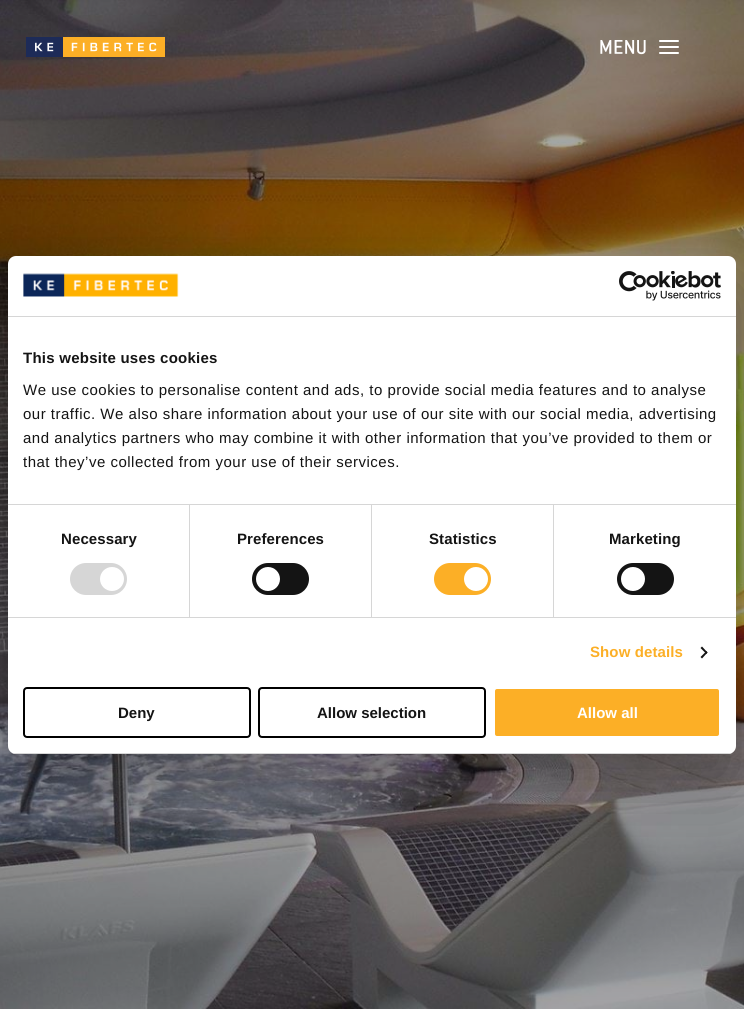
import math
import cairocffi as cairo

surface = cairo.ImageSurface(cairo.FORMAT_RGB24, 744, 1009)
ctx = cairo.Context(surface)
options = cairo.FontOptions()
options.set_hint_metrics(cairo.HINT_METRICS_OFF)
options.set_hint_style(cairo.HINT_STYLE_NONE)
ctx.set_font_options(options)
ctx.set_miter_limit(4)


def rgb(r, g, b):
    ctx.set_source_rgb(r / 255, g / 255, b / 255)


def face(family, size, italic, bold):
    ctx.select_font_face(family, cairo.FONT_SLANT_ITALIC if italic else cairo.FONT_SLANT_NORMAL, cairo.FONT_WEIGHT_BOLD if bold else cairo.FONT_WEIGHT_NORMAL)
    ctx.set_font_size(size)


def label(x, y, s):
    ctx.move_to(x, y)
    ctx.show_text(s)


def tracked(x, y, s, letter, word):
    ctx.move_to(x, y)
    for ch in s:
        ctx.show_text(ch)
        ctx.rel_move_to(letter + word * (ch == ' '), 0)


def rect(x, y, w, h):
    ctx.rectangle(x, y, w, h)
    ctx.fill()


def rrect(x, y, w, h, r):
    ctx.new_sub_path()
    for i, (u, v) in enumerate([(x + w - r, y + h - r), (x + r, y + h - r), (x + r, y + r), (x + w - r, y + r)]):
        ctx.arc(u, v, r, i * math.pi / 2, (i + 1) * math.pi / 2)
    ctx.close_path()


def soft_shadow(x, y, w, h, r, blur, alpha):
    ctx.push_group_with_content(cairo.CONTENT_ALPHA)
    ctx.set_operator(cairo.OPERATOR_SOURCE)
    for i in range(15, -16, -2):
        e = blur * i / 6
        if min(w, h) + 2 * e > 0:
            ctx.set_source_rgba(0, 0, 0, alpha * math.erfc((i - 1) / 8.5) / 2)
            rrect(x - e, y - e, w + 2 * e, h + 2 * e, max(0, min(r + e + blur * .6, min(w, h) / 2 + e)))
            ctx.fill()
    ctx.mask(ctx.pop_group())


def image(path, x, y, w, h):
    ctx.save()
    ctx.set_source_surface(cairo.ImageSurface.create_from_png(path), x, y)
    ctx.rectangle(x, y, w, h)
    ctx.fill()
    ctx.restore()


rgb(255, 255, 255)
ctx.paint()
image('image0.png', 0, 0, 744, 1009)
image('image1.png', 26, 37, 139, 20)
image('image2.png', 600, 40, 46, 15)
image('image3.png', 659, 40, 20, 14)
rgb(0, 0, 0)
soft_shadow(8, 288, 728, 498, 8, 34, 0.3)
rgb(255, 255, 255)
rrect(8, 256, 728, 498, 8)
ctx.fill()
rgb(214, 214, 214)
rect(8, 316, 728, 1)
image('image4.png', 23, 273, 156, 24)
image('image5.png', 619, 271, 102, 30)
rect(8, 504, 728, 1)
face('Liberation Sans', 15, 0, 1)
rgb(20, 20, 20)
tracked(23, 363, 'This website uses cookies', 0.25, 0)
face('Liberation Sans', 15, 0, 0)
tracked(23, 395, 'We use cookies to personalise content and ads, to provide social media features and to analyse', 0.5, 0)
tracked(23, 419, 'our traffic. We also share information about your use of our site with our social media, advertising', 0.5, 0)
tracked(23, 443, 'and analytics partners who may combine it with other information that you’ve provided to them or', 0.5, 0)
tracked(23, 467, 'that they’ve collected from your use of their services.', 0.5, 0)
rgb(214, 214, 214)
rect(8, 617, 728, 1)
rect(189, 505, 1, 112)
face('Liberation Sans', 15, 0, 1)
rgb(20, 20, 20)
tracked(61, 544, 'Necessary', 0.1, 0)
rgb(214, 214, 214)
rrect(70, 563, 57, 32, 16)
ctx.fill()
rgb(255, 255, 255)
ctx.arc(112, 579, 12, 0, 2 * math.pi)
ctx.fill()
rgb(214, 214, 214)
rect(371, 505, 1, 112)
rgb(20, 20, 20)
tracked(237, 544, 'Preferences', 0.1, 0)
rrect(252, 563, 57, 32, 16)
ctx.fill()
rgb(255, 255, 255)
ctx.arc(268, 579, 12, 0, 2 * math.pi)
ctx.fill()
rgb(214, 214, 214)
rect(553, 505, 1, 112)
rgb(20, 20, 20)
tracked(429, 544, 'Statistics', 0.1, 0)
rgb(252, 175, 38)
rrect(434, 563, 57, 32, 16)
ctx.fill()
rgb(255, 255, 255)
ctx.arc(476, 579, 12, 0, 2 * math.pi)
ctx.fill()
rgb(20, 20, 20)
tracked(609, 544, 'Marketing', 0.1, 0)
rrect(617, 563, 57, 32, 16)
ctx.fill()
rgb(255, 255, 255)
ctx.arc(633, 579, 12, 0, 2 * math.pi)
ctx.fill()
rgb(252, 175, 38)
tracked(590, 657, 'Show details', 0.1, 0)
rgb(20, 20, 20)
ctx.new_path()
ctx.move_to(702, 646.5)
ctx.line_to(707.5, 652.5)
ctx.line_to(706.5, 654)
ctx.line_to(700.5, 648)
ctx.close_path()
ctx.fill()
ctx.new_path()
ctx.move_to(706.5, 651)
ctx.line_to(707.5, 652.5)
ctx.line_to(702, 658.5)
ctx.line_to(700.5, 657)
ctx.close_path()
ctx.fill()
ctx.save()
rrect(8, 256, 728, 498, 8)
ctx.clip()
rgb(214, 214, 214)
rect(8, 753, 728, 1)
ctx.restore()
rrect(24, 688, 226, 49, 3)
rgb(0, 0, 0)
ctx.stroke()
rgb(20, 20, 20)
label(118, 718, 'Deny')
rrect(259, 688, 226, 49, 3)
rgb(0, 0, 0)
ctx.stroke()
rgb(20, 20, 20)
label(317, 718, 'Allow selection')
rgb(252, 175, 38)
rrect(494, 688, 226, 49, 3)
ctx.fill_preserve()
rgb(255, 255, 255)
ctx.stroke()
label(577, 718, 'Allow all')
surface.write_to_png('render.png')
